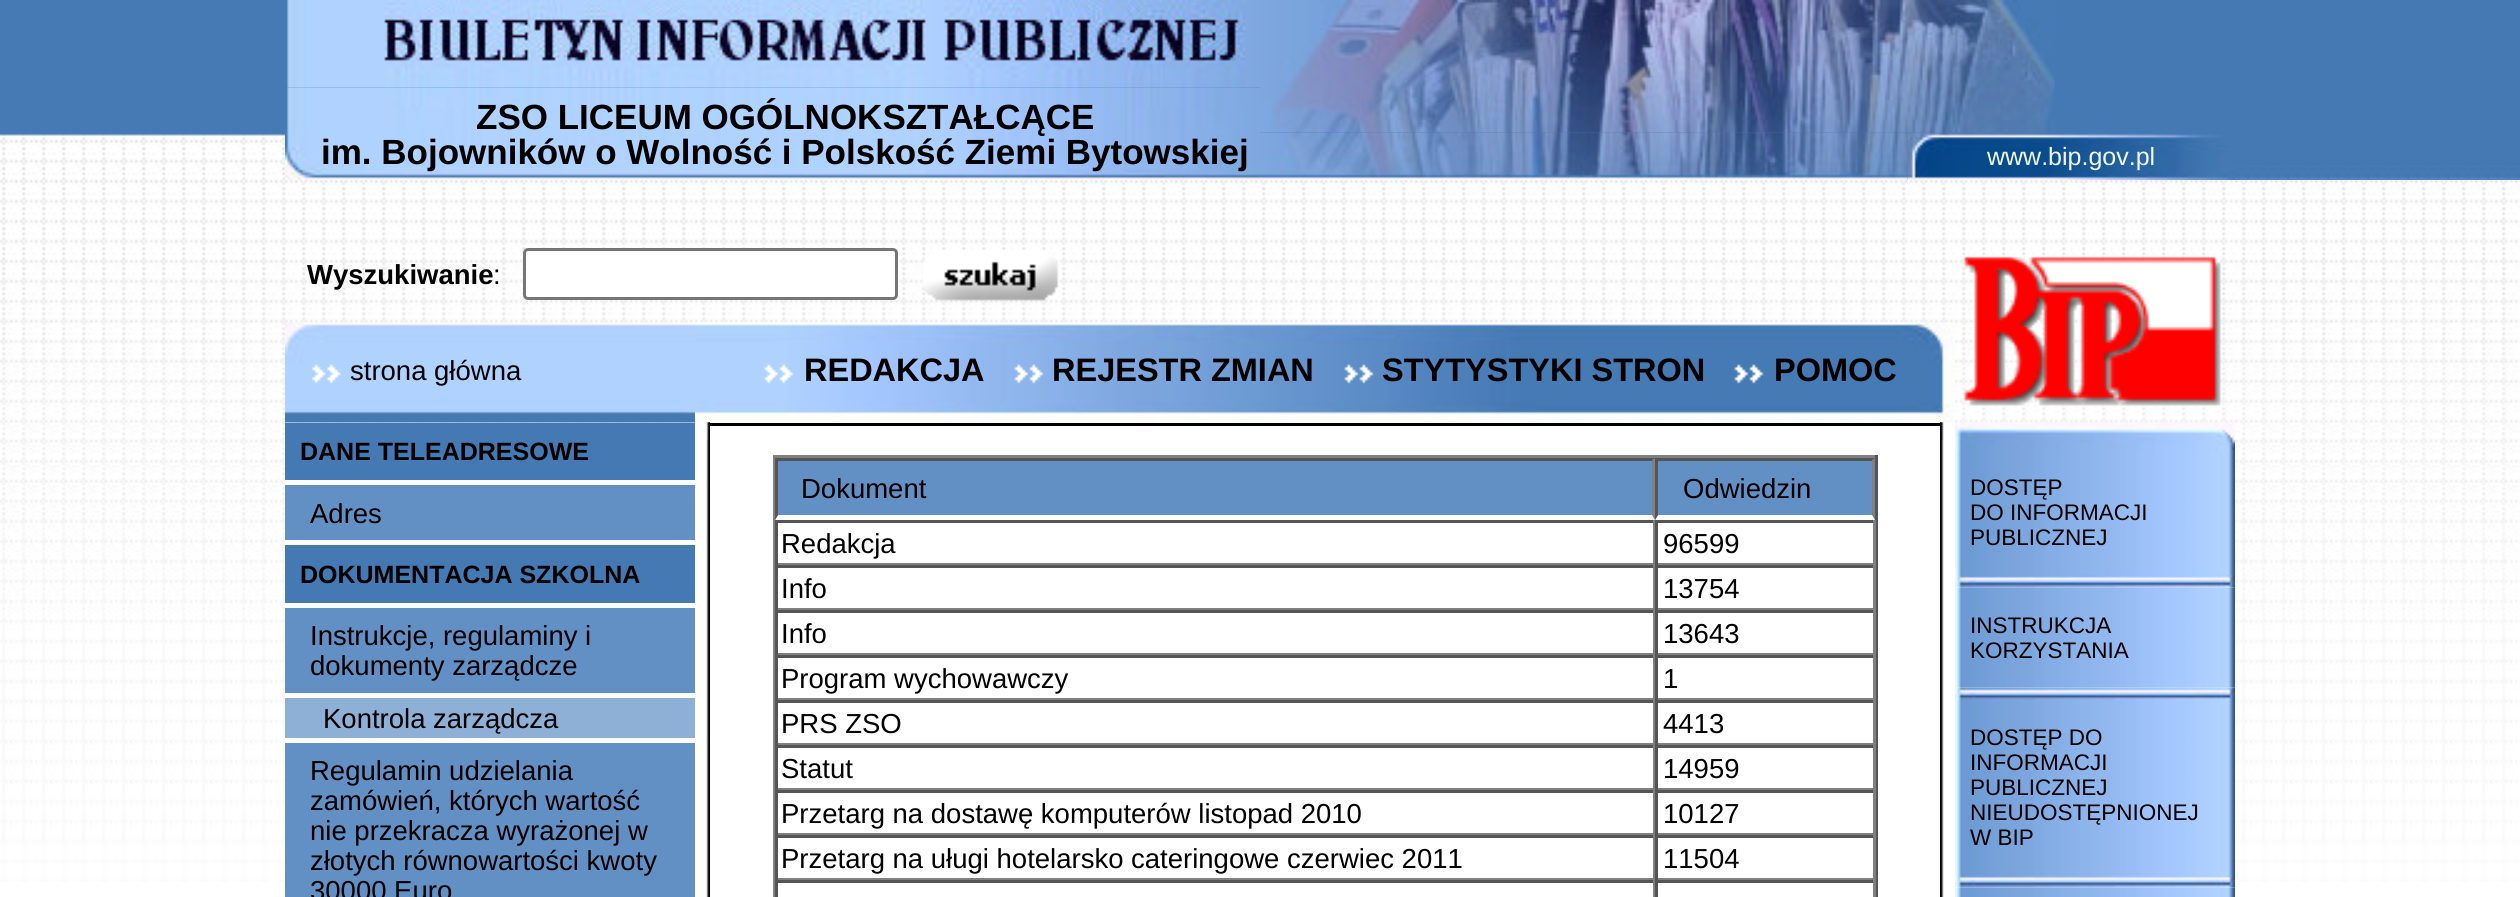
import math
import cairocffi as cairo

surface = cairo.ImageSurface(cairo.FORMAT_RGB24, 2520, 897)
ctx = cairo.Context(surface)
options = cairo.FontOptions()
options.set_hint_metrics(cairo.HINT_METRICS_OFF)
options.set_hint_style(cairo.HINT_STYLE_NONE)
ctx.set_font_options(options)
ctx.set_miter_limit(4)


def rgb(r, g, b):
    ctx.set_source_rgb(r / 255, g / 255, b / 255)


def face(family, size, italic, bold):
    ctx.select_font_face(family, cairo.FONT_SLANT_ITALIC if italic else cairo.FONT_SLANT_NORMAL, cairo.FONT_WEIGHT_BOLD if bold else cairo.FONT_WEIGHT_NORMAL)
    ctx.set_font_size(size)


def label(x, y, s):
    ctx.move_to(x, y)
    ctx.show_text(s)


def rect(x, y, w, h):
    ctx.rectangle(x, y, w, h)
    ctx.fill()


def rrect(x, y, w, h, r):
    ctx.new_sub_path()
    for i, (u, v) in enumerate([(x + w - r, y + h - r), (x + r, y + h - r), (x + r, y + r), (x + w - r, y + r)]):
        ctx.arc(u, v, r, i * math.pi / 2, (i + 1) * math.pi / 2)
    ctx.close_path()


def image(path, x, y, w, h):
    ctx.save()
    ctx.set_source_surface(cairo.ImageSurface.create_from_png(path), x, y)
    ctx.rectangle(x, y, w, h)
    ctx.fill()
    ctx.restore()


rgb(255, 255, 255)
ctx.paint()
image('image0.png', 0, 134, 2520, 748)
image('image1.png', 0, 0, 1260, 136)
image('image3.png', 285, 87, 975, 93)
image('image2.png', 286, 0, 974, 88)
face('Liberation Sans', 35, 0, 1)
rgb(0, 0, 0)
label(476, 129, 'ZSO LICEUM OGÓLNOKSZTAŁCĄCE')
label(321, 164, 'im. Bojowników o Wolność i Polskość Ziemi Bytowskiej')
image('image4.png', 1260, 0, 1260, 180)
image('image7.png', 1907, 132, 328, 48)
image('image5.png', 1260, 0, 795, 133)
image('image6.png', 1260, 132, 648, 48)
face('Liberation Sans', 25, 0, 0)
rgb(240, 248, 255)
label(1987, 165, 'www.bip.gov.pl')
face('Liberation Sans', 27.5, 0, 1)
rgb(0, 0, 0)
label(307, 284, 'Wyszukiwanie')
face('Liberation Sans', 27.5, 0, 0)
label(493, 284, ':')
rgb(255, 255, 255)
rrect(524.5, 249.5, 372, 49, 3.5)
ctx.fill_preserve()
rgb(118, 118, 118)
ctx.set_line_width(3)
ctx.stroke()
image('image8.png', 922, 249, 137, 52)
image('image9.png', 1964, 256, 257, 150)
image('image10.png', 285, 322, 410, 101)
image('image11.png', 311, 364, 30, 20)
rgb(0, 0, 0)
label(350, 380, 'strona główna')
image('image12.png', 695, 322, 1260, 101)
image('image13.png', 764, 364, 30, 20)
face('Liberation Sans', 32.5, 0, 1)
label(804, 381, 'REDAKCJA')
image('image14.png', 1014, 364, 30, 20)
label(1052, 381, 'REJESTR ZMIAN')
image('image15.png', 1344, 364, 30, 20)
label(1382, 381, 'STYTYSTYKI STRON')
image('image16.png', 1734, 364, 30, 20)
label(1774, 381, 'POMOC')
rgb(69, 121, 179)
rect(285, 423, 410, 57)
rgb(255, 255, 255)
rect(285, 480, 410, 5)
face('Liberation Sans', 25, 0, 1)
rgb(0, 0, 0)
label(300, 460, 'DANE TELEADRESOWE')
rgb(98, 144, 197)
rect(285, 485, 410, 55)
rgb(255, 255, 255)
rect(285, 540, 410, 5)
face('Liberation Sans', 27.5, 0, 0)
rgb(0, 0, 0)
label(310, 523, 'Adres')
rgb(69, 121, 179)
rect(285, 545, 410, 58)
rgb(255, 255, 255)
rect(285, 603, 410, 5)
face('Liberation Sans', 25, 0, 1)
rgb(0, 0, 0)
label(300, 583, 'DOKUMENTACJA SZKOLNA')
rgb(98, 144, 197)
rect(285, 608, 410, 85)
rgb(255, 255, 255)
rect(285, 693, 401, 5)
face('Liberation Sans', 27.5, 0, 0)
rgb(0, 0, 0)
label(310, 645, 'Instrukcje, regulaminy i')
label(310, 675, 'dokumenty zarządcze')
rgb(142, 176, 215)
rect(285, 698, 410, 40)
rgb(255, 255, 255)
rect(285, 738, 410, 5)
rgb(0, 0, 0)
label(323, 728, 'Kontrola zarządcza')
rgb(98, 144, 197)
rect(285, 743, 410, 154)
rgb(0, 0, 0)
label(310, 780, 'Regulamin udzielania')
label(310, 810, 'zamówień, których wartość')
label(310, 840, 'nie przekracza wyrażonej w')
label(310, 870, 'złotych równowartości kwoty')
label(310, 900, '30000 Euro')
image('image17.png', 695, 422, 15, 475)
image('image18.png', 706, 422, 4, 18)
rgb(255, 255, 255)
rect(710, 426, 1230, 456)
rgb(0, 0, 0)
rect(710, 423, 1230, 3)
rgb(128, 128, 128)
rect(773, 455, 1105, 3)
rgb(85, 85, 85)
rect(1875, 455, 3, 442)
rgb(128, 128, 128)
rect(773, 455, 3, 442)
rgb(98, 144, 197)
rect(775, 461, 1100, 59)
rgb(85, 85, 85)
rect(775, 458, 1100, 3)
rgb(128, 128, 128)
ctx.new_path()
ctx.move_to(1655, 458)
ctx.line_to(1655, 520)
ctx.line_to(1652, 515)
ctx.line_to(1652, 460)
ctx.close_path()
ctx.fill()
rgb(255, 255, 255)
ctx.new_path()
ctx.move_to(1655, 520)
ctx.line_to(775, 520)
ctx.line_to(778, 515)
ctx.line_to(1652, 515)
ctx.close_path()
ctx.fill()
rgb(85, 85, 85)
ctx.new_path()
ctx.move_to(775, 520)
ctx.line_to(775, 458)
ctx.line_to(778, 460)
ctx.line_to(778, 515)
ctx.close_path()
ctx.fill()
rgb(0, 0, 0)
label(801, 498, 'Dokument')
rgb(128, 128, 128)
ctx.new_path()
ctx.move_to(1875, 458)
ctx.line_to(1875, 520)
ctx.line_to(1872, 515)
ctx.line_to(1872, 460)
ctx.close_path()
ctx.fill()
rgb(255, 255, 255)
ctx.new_path()
ctx.move_to(1875, 520)
ctx.line_to(1655, 520)
ctx.line_to(1658, 515)
ctx.line_to(1872, 515)
ctx.close_path()
ctx.fill()
rgb(85, 85, 85)
ctx.new_path()
ctx.move_to(1655, 520)
ctx.line_to(1655, 458)
ctx.line_to(1658, 460)
ctx.line_to(1658, 515)
ctx.close_path()
ctx.fill()
rgb(0, 0, 0)
label(1683, 498, 'Odwiedzin')
rgb(85, 85, 85)
rect(775, 520, 1100, 3)
rgb(128, 128, 128)
rect(1653, 520, 2, 45)
rect(775, 563, 880, 2)
rgb(85, 85, 85)
rect(775, 520, 3, 45)
rgb(0, 0, 0)
label(781, 553, 'Redakcja')
rgb(128, 128, 128)
rect(1873, 520, 3, 45)
rect(1655, 563, 220, 2)
rgb(85, 85, 85)
rect(1655, 520, 3, 45)
rgb(0, 0, 0)
label(1663, 553, '96599')
rgb(85, 85, 85)
rect(775, 565, 1100, 3)
rgb(128, 128, 128)
rect(1653, 565, 2, 45)
rect(775, 608, 880, 2)
rgb(85, 85, 85)
rect(775, 565, 3, 45)
rgb(0, 0, 0)
label(781, 598, 'Info')
rgb(128, 128, 128)
rect(1873, 565, 3, 45)
rect(1655, 608, 220, 2)
rgb(85, 85, 85)
rect(1655, 565, 3, 45)
rgb(0, 0, 0)
label(1663, 598, '13754')
rgb(85, 85, 85)
rect(775, 610, 1100, 3)
rgb(128, 128, 128)
rect(1653, 610, 2, 45)
rect(775, 653, 880, 2)
rgb(85, 85, 85)
rect(775, 610, 3, 45)
rgb(0, 0, 0)
label(781, 643, 'Info')
rgb(128, 128, 128)
rect(1873, 610, 3, 45)
rect(1655, 653, 220, 2)
rgb(85, 85, 85)
rect(1655, 610, 3, 45)
rgb(0, 0, 0)
label(1663, 643, '13643')
rgb(85, 85, 85)
rect(775, 655, 1100, 3)
rgb(128, 128, 128)
rect(1653, 655, 2, 45)
rect(775, 698, 880, 2)
rgb(85, 85, 85)
rect(775, 655, 3, 45)
rgb(0, 0, 0)
label(781, 688, 'Program wychowawczy')
rgb(128, 128, 128)
rect(1873, 655, 3, 45)
rect(1655, 698, 220, 2)
rgb(85, 85, 85)
rect(1655, 655, 3, 45)
rgb(0, 0, 0)
label(1663, 688, '1')
rgb(85, 85, 85)
rect(775, 700, 1100, 3)
rgb(128, 128, 128)
rect(1653, 700, 2, 45)
rect(775, 743, 880, 2)
rgb(85, 85, 85)
rect(775, 700, 3, 45)
rgb(0, 0, 0)
label(781, 733, 'PRS ZSO')
rgb(128, 128, 128)
rect(1873, 700, 3, 45)
rect(1655, 743, 220, 2)
rgb(85, 85, 85)
rect(1655, 700, 3, 45)
rgb(0, 0, 0)
label(1663, 733, '4413')
rgb(85, 85, 85)
rect(775, 745, 1100, 3)
rgb(128, 128, 128)
rect(1653, 745, 2, 45)
rect(775, 788, 880, 2)
rgb(85, 85, 85)
rect(775, 745, 3, 45)
rgb(0, 0, 0)
label(781, 778, 'Statut')
rgb(128, 128, 128)
rect(1873, 745, 3, 45)
rect(1655, 788, 220, 2)
rgb(85, 85, 85)
rect(1655, 745, 3, 45)
rgb(0, 0, 0)
label(1663, 778, '14959')
rgb(85, 85, 85)
rect(775, 790, 1100, 3)
rgb(128, 128, 128)
rect(1653, 790, 2, 45)
rect(775, 833, 880, 2)
rgb(85, 85, 85)
rect(775, 790, 3, 45)
rgb(0, 0, 0)
label(781, 823, 'Przetarg na dostawę komputerów listopad 2010')
rgb(128, 128, 128)
rect(1873, 790, 3, 45)
rect(1655, 833, 220, 2)
rgb(85, 85, 85)
rect(1655, 790, 3, 45)
rgb(0, 0, 0)
label(1663, 823, '10127')
rgb(85, 85, 85)
rect(775, 835, 1100, 3)
rgb(128, 128, 128)
rect(1653, 835, 2, 45)
rect(775, 878, 880, 2)
rgb(85, 85, 85)
rect(775, 835, 3, 45)
rgb(0, 0, 0)
label(781, 868, 'Przetarg na uługi hotelarsko cateringowe czerwiec 2011')
rgb(128, 128, 128)
rect(1873, 835, 3, 45)
rect(1655, 878, 220, 2)
rgb(85, 85, 85)
rect(1655, 835, 3, 45)
rgb(0, 0, 0)
label(1663, 868, '11504')
rgb(85, 85, 85)
rect(775, 880, 1100, 3)
rgb(128, 128, 128)
rect(1653, 880, 2, 17)
rgb(85, 85, 85)
rect(775, 880, 3, 17)
rgb(128, 128, 128)
rect(1873, 880, 3, 17)
rgb(85, 85, 85)
rect(1655, 880, 3, 17)
image('image19.png', 1940, 422, 15, 475)
image('image20.png', 1940, 422, 4, 18)
image('image21.png', 1955, 422, 280, 28)
image('image22.png', 1955, 450, 280, 125)
face('Liberation Sans', 22.5, 0, 0)
rgb(0, 0, 0)
label(1970, 495, 'DOSTĘP')
label(1970, 520, 'DO INFORMACJI')
label(1970, 545, 'PUBLICZNEJ')
image('image24.png', 1955, 587, 280, 101)
image('image23.png', 1955, 575, 280, 13)
label(1970, 633, 'INSTRUKCJA')
label(1970, 658, 'KORZYSTANIA')
image('image25.png', 1955, 687, 280, 13)
image('image26.png', 1955, 700, 280, 175)
label(1970, 745, 'DOSTĘP DO')
label(1970, 770, 'INFORMACJI')
label(1970, 795, 'PUBLICZNEJ')
label(1970, 820, 'NIEUDOSTĘPNIONEJ')
label(1970, 845, 'W BIP')
image('image28.png', 1955, 887, 280, 10)
image('image27.png', 1955, 875, 280, 13)
surface.write_to_png('render.png')
